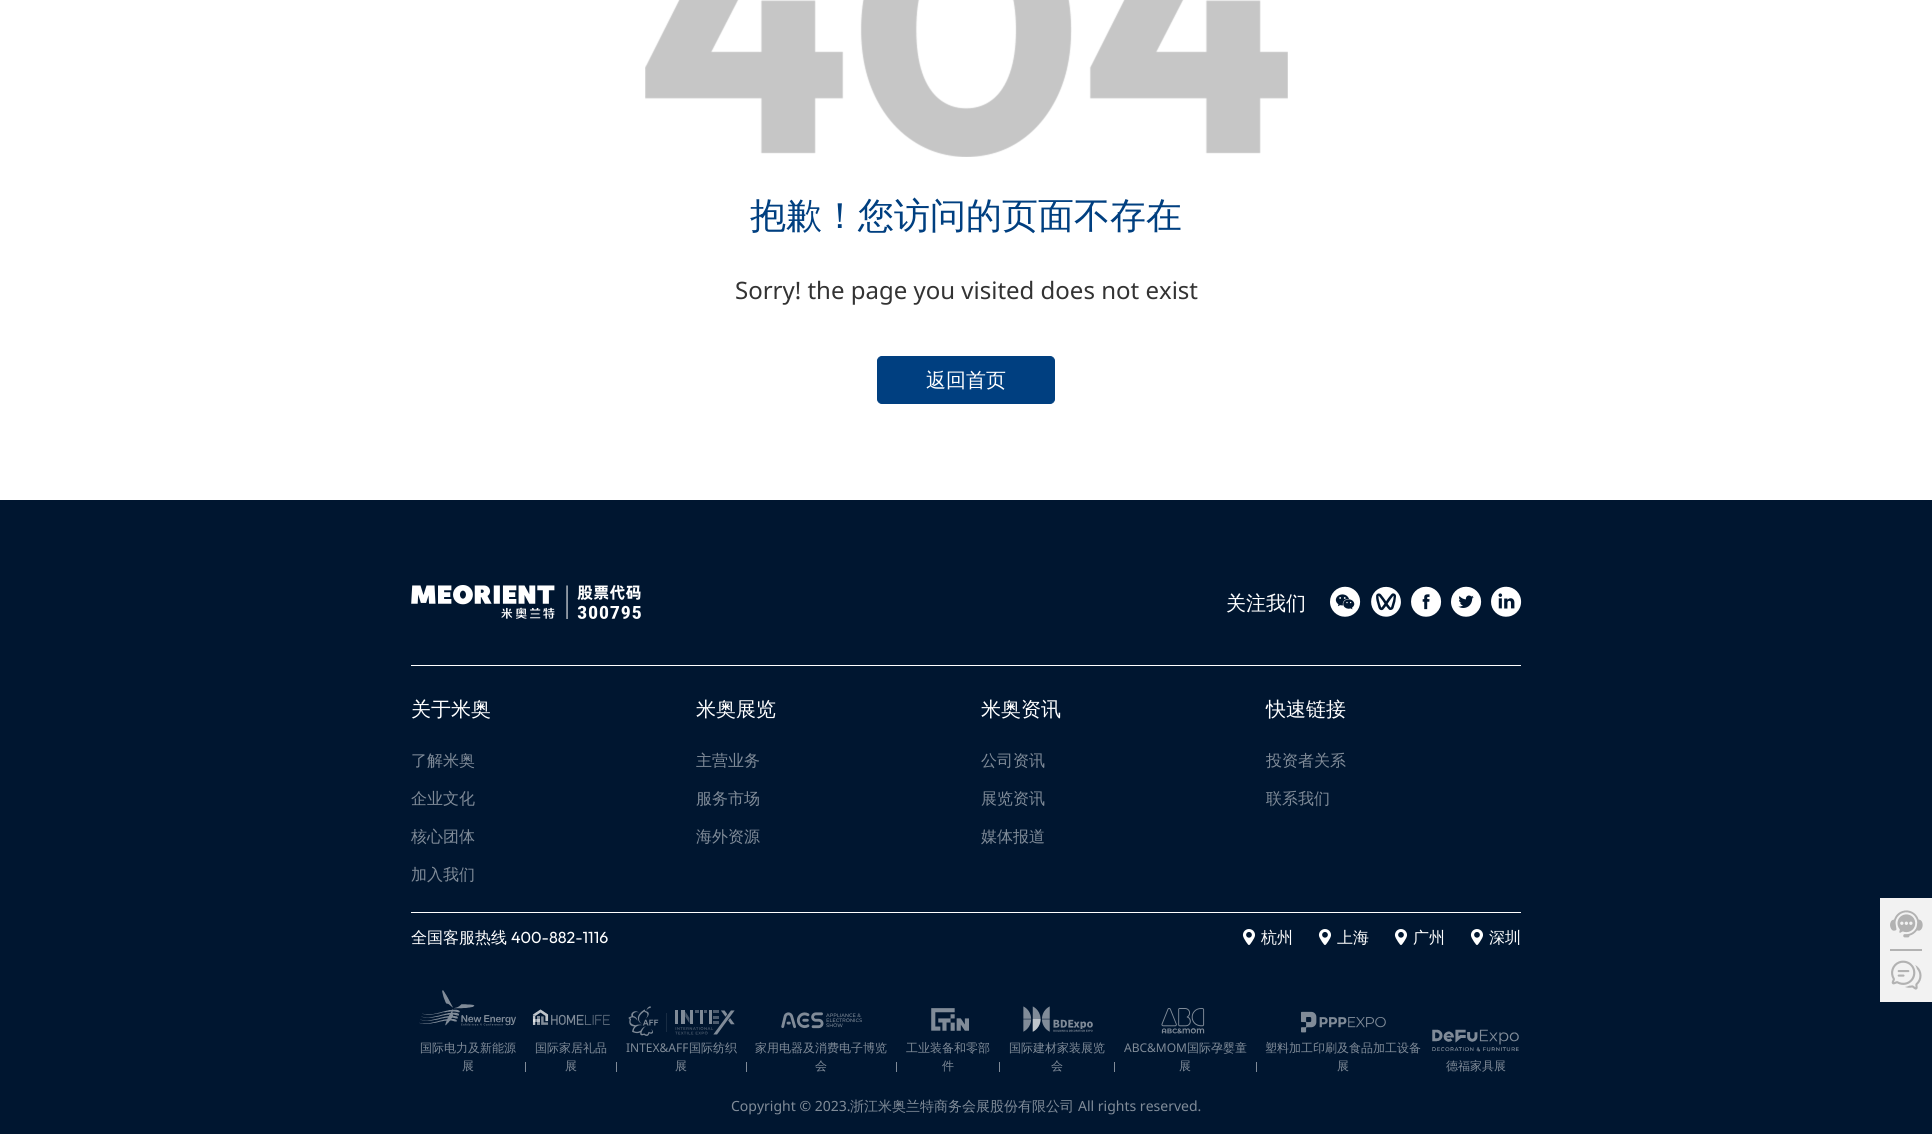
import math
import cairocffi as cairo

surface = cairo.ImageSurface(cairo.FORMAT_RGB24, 1932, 1134)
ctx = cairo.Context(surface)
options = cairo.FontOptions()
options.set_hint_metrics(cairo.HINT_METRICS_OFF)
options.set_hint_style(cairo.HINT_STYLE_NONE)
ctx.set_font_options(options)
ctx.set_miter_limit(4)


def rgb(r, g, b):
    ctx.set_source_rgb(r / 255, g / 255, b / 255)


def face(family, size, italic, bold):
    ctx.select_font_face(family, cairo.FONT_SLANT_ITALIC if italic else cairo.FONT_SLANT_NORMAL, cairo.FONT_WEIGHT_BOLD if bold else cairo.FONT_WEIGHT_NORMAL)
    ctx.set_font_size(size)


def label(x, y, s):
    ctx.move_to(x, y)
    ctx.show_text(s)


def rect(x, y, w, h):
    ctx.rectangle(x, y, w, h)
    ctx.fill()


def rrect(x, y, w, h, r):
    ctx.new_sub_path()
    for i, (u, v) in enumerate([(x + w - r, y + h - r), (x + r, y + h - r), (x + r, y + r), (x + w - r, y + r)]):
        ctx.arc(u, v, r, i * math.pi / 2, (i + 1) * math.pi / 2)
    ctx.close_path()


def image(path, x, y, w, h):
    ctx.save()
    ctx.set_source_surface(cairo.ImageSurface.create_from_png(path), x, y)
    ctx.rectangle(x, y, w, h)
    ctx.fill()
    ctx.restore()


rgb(255, 255, 255)
ctx.paint()
image('image0.png', 645, 0, 643, 157)
face('WenQuanYi Zen Hei Medium', 36, 0, 0)
rgb(0, 63, 128)
label(750, 228, '抱歉！您访问的页面不存在')
face('Noto Sans', 24, 0, 0)
rgb(51, 51, 51)
label(735, 299, 'Sorry! the page you visited does not exist')
rgb(0, 63, 128)
rrect(877.5, 356.5, 177, 47, 4.5)
ctx.fill_preserve()
ctx.set_line_width(1)
ctx.stroke()
face('WenQuanYi Zen Hei Medium', 20, 0, 0)
rgb(255, 255, 255)
label(926, 387, '返回首页')
rgb(0, 22, 48)
rect(0, 500, 1932, 634)
rgb(255, 255, 255)
rect(411, 665, 1110, 1)
image('image1.png', 411, 585, 230, 34)
label(1226, 610, '关注我们')
image('image2.png', 1330, 586, 31, 31)
image('image3.png', 1371, 586, 30, 31)
image('image4.png', 1411, 586, 31, 31)
image('image5.png', 1451, 586, 31, 31)
image('image6.png', 1491, 586, 31, 31)
label(411, 716, '关于米奥')
face('WenQuanYi Zen Hei Medium', 16, 0, 0)
rgb(128, 139, 152)
label(411, 766, '了解米奥')
label(411, 804, '企业文化')
label(411, 842, '核心团体')
label(411, 880, '加入我们')
face('WenQuanYi Zen Hei Medium', 20, 0, 0)
rgb(255, 255, 255)
label(696, 716, '米奥展览')
face('WenQuanYi Zen Hei Medium', 16, 0, 0)
rgb(128, 139, 152)
label(696, 766, '主营业务')
label(696, 804, '服务市场')
label(696, 842, '海外资源')
face('WenQuanYi Zen Hei Medium', 20, 0, 0)
rgb(255, 255, 255)
label(981, 716, '米奥资讯')
face('WenQuanYi Zen Hei Medium', 16, 0, 0)
rgb(128, 139, 152)
label(981, 766, '公司资讯')
label(981, 804, '展览资讯')
label(981, 842, '媒体报道')
face('WenQuanYi Zen Hei Medium', 20, 0, 0)
rgb(255, 255, 255)
label(1266, 716, '快速链接')
face('WenQuanYi Zen Hei Medium', 16, 0, 0)
rgb(128, 139, 152)
label(1266, 766, '投资者关系')
label(1266, 804, '联系我们')
rgb(255, 255, 255)
rect(411, 912, 1110, 1)
label(411, 943, '全国客服热线')
face('Outfit', 16, 0, 0)
label(511, 943, '400-882-1116')
image('image7.png', 1242, 929, 13, 16)
face('WenQuanYi Zen Hei Medium', 16, 0, 0)
label(1261, 943, '杭州')
image('image7.png', 1318, 929, 13, 16)
label(1337, 943, '上海')
image('image7.png', 1394, 929, 13, 16)
label(1413, 943, '广州')
image('image7.png', 1470, 929, 13, 16)
label(1489, 943, '深圳')
image('image8.png', 419, 990, 97, 36)
face('WenQuanYi Zen Hei Medium', 12, 0, 0)
rgb(128, 139, 152)
label(420, 1052, '国际电力及新能源')
label(462, 1070, '展')
rect(525, 1062, 1, 10)
image('image9.png', 532, 1009, 78, 16)
label(535, 1052, '国际家居礼品')
label(565, 1070, '展')
rect(616, 1062, 1, 10)
image('image10.png', 628, 1006, 107, 30)
face('Noto Sans', 12, 0, 0)
label(626, 1052, 'INTEX&AFF')
face('WenQuanYi Zen Hei Medium', 12, 0, 0)
label(689, 1052, '国际纺织')
label(675, 1070, '展')
rect(746, 1062, 1, 10)
image('image11.png', 781, 1012, 81, 17)
label(755, 1052, '家用电器及消费电子博览')
label(815, 1070, '会')
rect(896, 1062, 1, 10)
image('image12.png', 931, 1008, 38, 23)
label(906, 1052, '工业装备和零部')
label(942, 1070, '件')
rect(999, 1062, 1, 10)
image('image13.png', 1023, 1006, 70, 26)
label(1009, 1052, '国际建材家装展览')
label(1051, 1070, '会')
rect(1114, 1062, 1, 10)
image('image14.png', 1161, 1008, 44, 26)
face('Noto Sans', 12, 0, 0)
label(1124, 1052, 'ABC&MOM')
face('WenQuanYi Zen Hei Medium', 12, 0, 0)
label(1187, 1052, '国际孕婴童')
label(1179, 1070, '展')
rect(1256, 1062, 1, 10)
image('image15.png', 1301, 1011, 85, 22)
label(1265, 1052, '塑料加工印刷及食品加工设备')
label(1337, 1070, '展')
image('image16.png', 1432, 1029, 87, 23)
label(1446, 1070, '德福家具展')
face('Noto Sans', 14, 0, 0)
label(731, 1111, 'Copyright © 2023.')
face('WenQuanYi Zen Hei Medium', 14, 0, 0)
label(850, 1111, '浙江米奥兰特商务会展股份有限公司')
face('Noto Sans', 14, 0, 0)
label(1078, 1111, 'All rights reserved.')
rgb(242, 242, 242)
rect(1880, 898, 52, 104)
image('image17.png', 1890, 910, 33, 28)
rgb(178, 178, 178)
rect(1890, 949, 32, 2)
image('image18.png', 1891, 960, 31, 30)
surface.write_to_png('render.png')
